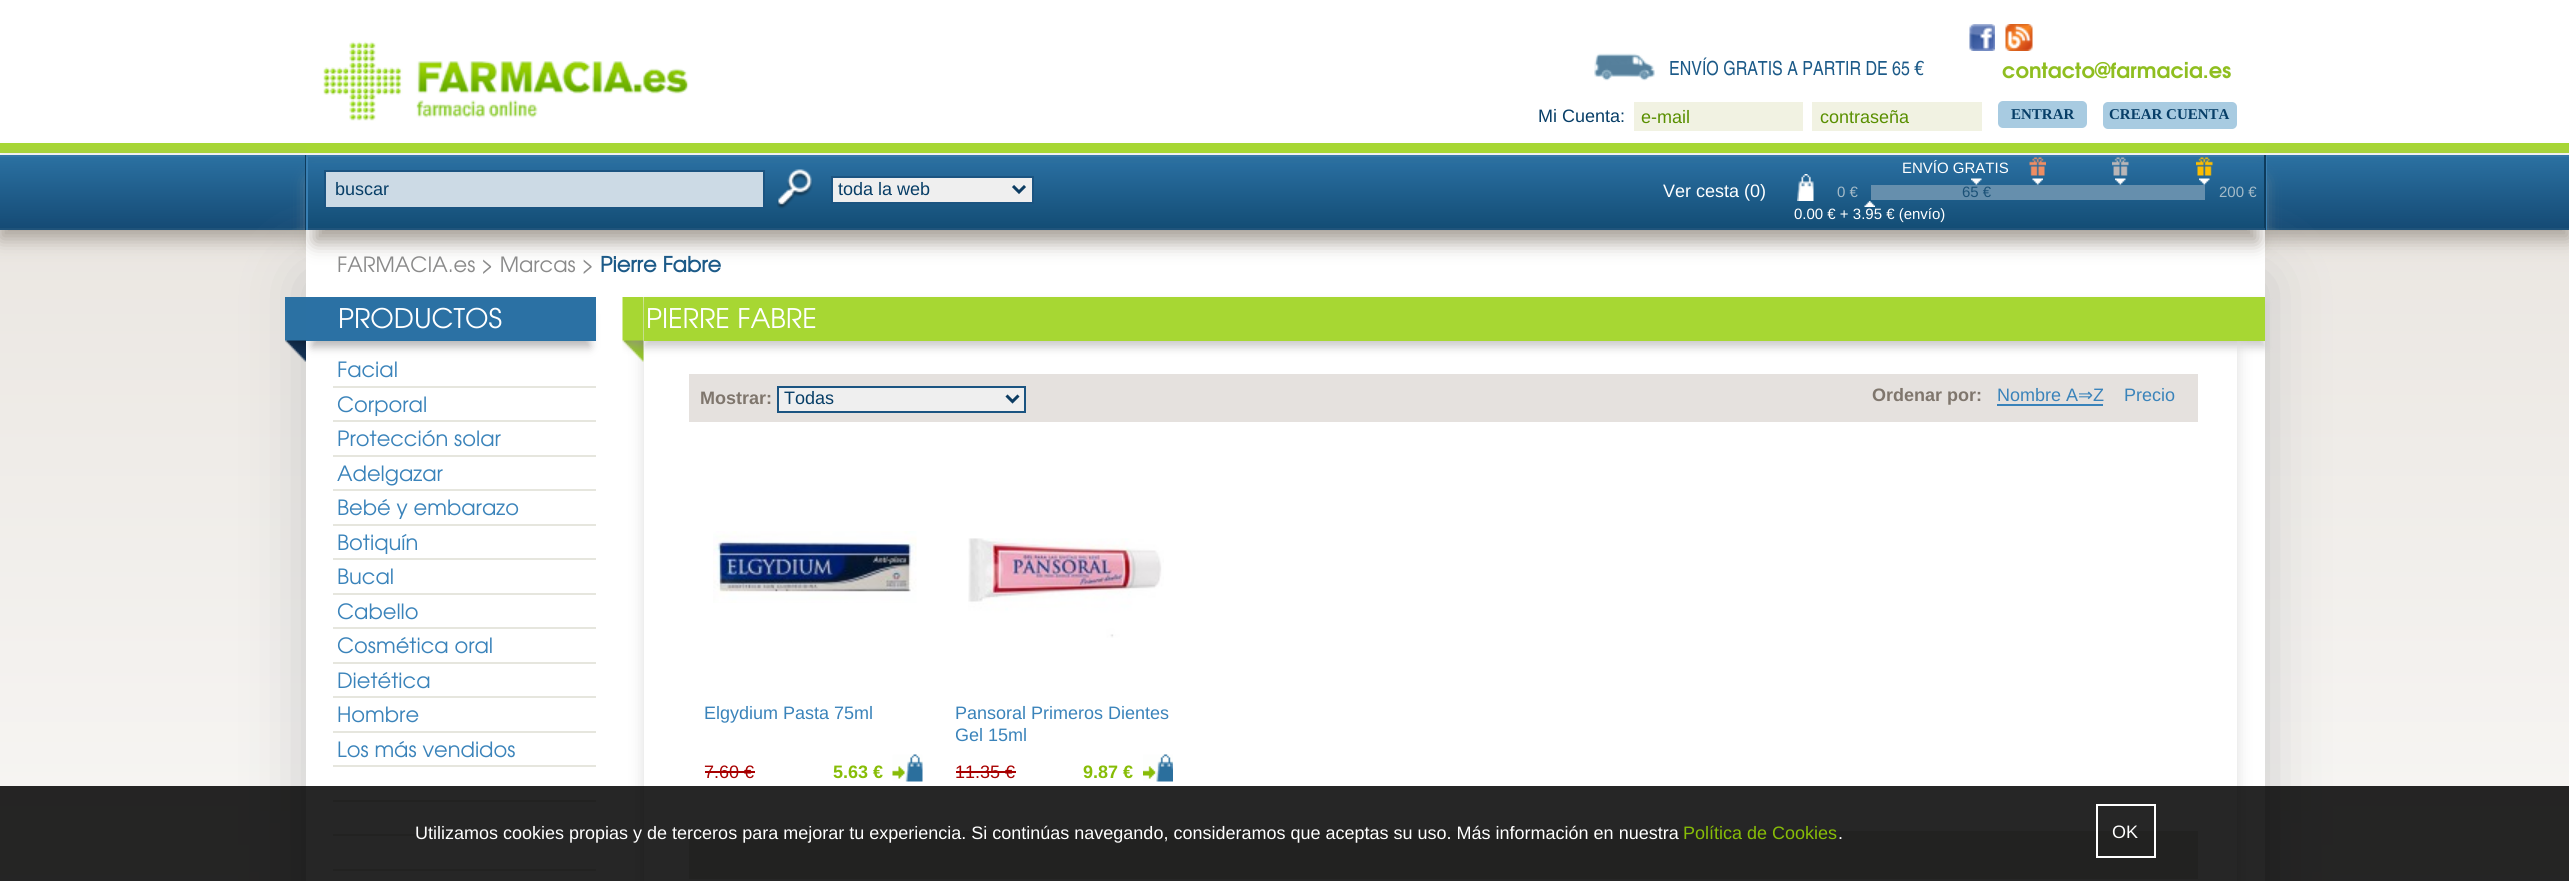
import math
import cairocffi as cairo

surface = cairo.ImageSurface(cairo.FORMAT_RGB24, 2569, 881)
ctx = cairo.Context(surface)
options = cairo.FontOptions()
options.set_hint_metrics(cairo.HINT_METRICS_OFF)
options.set_hint_style(cairo.HINT_STYLE_NONE)
ctx.set_font_options(options)
ctx.set_miter_limit(4)


def rgb(r, g, b):
    ctx.set_source_rgb(r / 255, g / 255, b / 255)


def face(family, size, italic, bold):
    ctx.select_font_face(family, cairo.FONT_SLANT_ITALIC if italic else cairo.FONT_SLANT_NORMAL, cairo.FONT_WEIGHT_BOLD if bold else cairo.FONT_WEIGHT_NORMAL)
    ctx.set_font_size(size)


def label(x, y, s):
    ctx.move_to(x, y)
    ctx.show_text(s)


def rect(x, y, w, h):
    ctx.rectangle(x, y, w, h)
    ctx.fill()


def rrect(x, y, w, h, r):
    ctx.new_sub_path()
    for i, (u, v) in enumerate([(x + w - r, y + h - r), (x + r, y + h - r), (x + r, y + r), (x + w - r, y + r)]):
        ctx.arc(u, v, r, i * math.pi / 2, (i + 1) * math.pi / 2)
    ctx.close_path()


def soft_shadow(x, y, w, h, r, blur, alpha):
    ctx.push_group_with_content(cairo.CONTENT_ALPHA)
    ctx.set_operator(cairo.OPERATOR_SOURCE)
    for i in range(15, -16, -2):
        e = blur * i / 6
        if min(w, h) + 2 * e > 0:
            ctx.set_source_rgba(0, 0, 0, alpha * math.erfc((i - 1) / 8.5) / 2)
            rrect(x - e, y - e, w + 2 * e, h + 2 * e, max(0, min(r + e + blur * .6, min(w, h) / 2 + e)))
            ctx.fill()
    ctx.mask(ctx.pop_group())


def image(path, x, y, w, h):
    ctx.save()
    ctx.set_source_surface(cairo.ImageSurface.create_from_png(path), x, y)
    ctx.rectangle(x, y, w, h)
    ctx.fill()
    ctx.restore()


rgb(255, 255, 255)
ctx.paint()
image('image0.png', 1969, 24, 26, 27)
image('image1.png', 2005, 24, 28, 27)
image('image2.png', 323, 41, 366, 80)
image('image3.png', 1594, 53, 61, 28)
face('TeX Gyre Heros Cn', 19.5, 0, 0)
rgb(28, 90, 136)
label(1669, 75, 'ENVÍO GRATIS A PARTIR DE 65 €')
face('TeX Gyre Adventor', 21, 0, 1)
rgb(143, 190, 32)
label(2002, 78, 'contacto@farmacia.es')
face('Liberation Sans', 18, 0, 0)
rgb(7, 62, 103)
label(1538, 122, 'Mi Cuenta:')
rgb(241, 242, 226)
rect(1634, 102, 169, 29)
rgb(89, 143, 0)
label(1641, 123, 'e-mail')
rgb(241, 242, 226)
rect(1812, 102, 170, 29)
rgb(89, 143, 0)
label(1820, 123, 'contraseña')
rgb(168, 203, 225)
rrect(1998, 101, 89, 27, 5)
ctx.fill()
face('Liberation Serif', 15, 0, 1)
rgb(7, 62, 103)
label(2011, 119, 'ENTRAR')
rgb(168, 203, 225)
rrect(2103, 102, 134, 27, 5)
ctx.fill()
rgb(7, 62, 103)
label(2109, 119, 'CREAR CUENTA')
rgb(167, 215, 51)
rect(0, 143, 2569, 10)
image('image19.png', 0, 230, 2569, 651)
rgb(168, 161, 153)
soft_shadow(0, 164, 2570, 75, 0, 9.5, 1)
rgb(167, 215, 51)
rect(306, 145, 1959, 8)
gradient = cairo.LinearGradient(1285, 156, 1285, 228)
gradient.add_color_stop_rgba(0, 0.169, 0.443, 0.635, 1)
gradient.add_color_stop_rgba(1, 0.082, 0.294, 0.459, 1)
ctx.set_source(gradient)
rect(0, 157, 2569, 71)
rgb(31, 83, 122)
rect(0, 228, 2569, 2)
rgb(199, 199, 199)
soft_shadow(306, 279, 1959, 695, 0, 31, 1)
rgb(255, 255, 255)
rect(306, 230, 1959, 651)
rgb(53, 119, 167)
rect(0, 155, 2569, 2)
rgb(168, 161, 153)
soft_shadow(314, 182, 1944, 60, 0, 9.5, 1)
rgb(56, 127, 179)
ctx.new_path()
ctx.move_to(308, 230)
ctx.line_to(2267, 230)
ctx.line_to(2267, 155)
ctx.line_to(2265, 155)
ctx.line_to(2265, 230)
ctx.close_path()
ctx.fill()
rgb(13, 59, 92)
ctx.new_path()
ctx.move_to(305, 155)
ctx.line_to(305, 230)
ctx.line_to(2264, 230)
ctx.line_to(306, 230)
ctx.line_to(306, 155)
ctx.close_path()
ctx.fill()
gradient = cairo.LinearGradient(1286, 156, 1286, 228)
gradient.add_color_stop_rgba(0, 0.169, 0.443, 0.643, 1)
gradient.add_color_stop_rgba(1, 0.075, 0.302, 0.459, 1)
ctx.set_source(gradient)
rect(308, 163, 1956, 65)
rgb(57, 121, 169)
rect(306, 155, 1959, 2)
rgb(13, 59, 92)
rect(2264, 155, 2, 75)
rgb(32, 84, 123)
rect(306, 228, 1959, 2)
rgb(56, 127, 179)
rect(306, 155, 2, 75)
rgb(204, 218, 229)
ctx.rectangle(325, 171, 439, 37)
ctx.fill_preserve()
rgb(27, 84, 129)
ctx.stroke()
face('Liberation Sans', 18, 0, 0)
rgb(7, 62, 103)
label(335, 195, 'buscar')
image('image4.png', 777, 169, 36, 40)
rgb(239, 239, 239)
ctx.rectangle(832, 177, 201, 26)
ctx.fill_preserve()
rgb(27, 84, 129)
ctx.stroke()
ctx.new_path()
ctx.move_to(1013, 186)
ctx.line_to(1019, 192)
ctx.line_to(1025, 186)
rgb(12, 60, 98)
ctx.set_line_width(3)
ctx.stroke()
rgb(7, 62, 103)
label(838, 195, 'toda la web')
image('image5.png', 1797, 174, 17, 27)
rgb(255, 255, 255)
label(1663, 197, 'Ver cesta (0)')
face('Liberation Sans', 15, 0, 0)
label(1902, 173, 'ENVÍO GRATIS')
image('image6.png', 2029, 157, 17, 19)
image('image7.png', 2112, 157, 17, 19)
image('image8.png', 2196, 157, 17, 19)
image('image9.png', 1971, 178, 11, 7)
image('image10.png', 2032, 178, 11, 7)
image('image9.png', 2115, 178, 11, 7)
image('image11.png', 2199, 178, 11, 7)
rgb(102, 143, 173)
rect(1871, 185, 334, 15)
rgb(27, 81, 119)
label(1962, 197, '65 €')
image('image12.png', 1864, 201, 11, 6)
rgb(255, 255, 255)
label(1794, 219, '0.00 € + 3.95 € (envío)')
rgb(165, 187, 200)
label(1837, 197, '0 €')
label(2219, 197, '200 €')
face('TeX Gyre Adventor', 21, 0, 0)
rgb(138, 138, 138)
label(337, 272, 'FARMACIA.es > Marcas >')
face('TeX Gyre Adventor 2', 21, 0, 1)
rgb(28, 90, 136)
label(600, 272, 'Pierre Fabre')
rgb(186, 184, 185)
soft_shadow(312, 315, 278, 32, 0, 4.5, 1)
rgb(43, 113, 164)
rect(306, 297, 290, 44)
image('image13.png', 285, 297, 21, 65)
face('TeX Gyre Adventor', 27, 0, 0)
rgb(255, 255, 255)
label(338, 328, 'PRODUCTOS')
face('TeX Gyre Adventor', 21, 0, 0)
rgb(58, 131, 186)
label(337, 377, 'Facial')
rgb(230, 230, 222)
rect(333, 386, 263, 2)
rgb(58, 131, 186)
label(337, 412, 'Corporal')
rgb(230, 230, 222)
rect(333, 420, 263, 2)
rgb(58, 131, 186)
label(337, 446, 'Protección solar')
rgb(230, 230, 222)
rect(333, 455, 263, 2)
rgb(58, 131, 186)
label(337, 481, 'Adelgazar')
rgb(230, 230, 222)
rect(333, 489, 263, 2)
rgb(58, 131, 186)
label(337, 515, 'Bebé y embarazo')
rgb(230, 230, 222)
rect(333, 524, 263, 2)
rgb(58, 131, 186)
label(337, 550, 'Botiquín')
rgb(230, 230, 222)
rect(333, 558, 263, 2)
rgb(58, 131, 186)
label(337, 584, 'Bucal')
rgb(230, 230, 222)
rect(333, 593, 263, 2)
rgb(58, 131, 186)
label(337, 619, 'Cabello')
rgb(230, 230, 222)
rect(333, 627, 263, 2)
rgb(58, 131, 186)
label(337, 653, 'Cosmética oral')
rgb(230, 230, 222)
rect(333, 662, 263, 2)
rgb(58, 131, 186)
label(337, 688, 'Dietética')
rgb(230, 230, 222)
rect(333, 696, 263, 2)
rgb(58, 131, 186)
label(337, 722, 'Hombre')
rgb(230, 230, 222)
rect(333, 731, 263, 2)
rgb(58, 131, 186)
label(337, 757, 'Los más vendidos')
rgb(230, 230, 222)
rect(333, 765, 263, 2)
rect(333, 800, 263, 2)
rect(333, 834, 263, 2)
rect(333, 869, 263, 2)
rgb(204, 204, 204)
soft_shadow(644, 303, 1621, 44, 0, 4.5, 1)
ctx.save()
ctx.set_fill_rule(cairo.FILL_RULE_EVEN_ODD)
ctx.new_path()
ctx.move_to(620, 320)
ctx.line_to(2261, 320)
ctx.line_to(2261, 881)
ctx.line_to(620, 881)
ctx.close_path()
ctx.move_to(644, 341)
ctx.line_to(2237, 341)
ctx.line_to(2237, 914)
ctx.line_to(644, 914)
ctx.close_path()
ctx.clip()
rgb(221, 221, 221)
soft_shadow(644, 344, 1593, 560, 0, 7.5, 1)
ctx.restore()
rgb(167, 215, 51)
rect(644, 297, 1621, 44)
image('image14.png', 622, 297, 22, 65)
face('TeX Gyre Adventor', 27, 0, 0)
rgb(255, 255, 255)
label(646, 328, 'PIERRE FABRE')
rgb(229, 225, 222)
rect(689, 374, 1509, 48)
face('Liberation Sans', 18, 0, 1)
rgb(127, 118, 109)
label(700, 404, 'Mostrar:')
rgb(239, 239, 239)
ctx.rectangle(778, 387, 247, 25)
ctx.fill_preserve()
rgb(27, 84, 129)
ctx.set_line_width(2)
ctx.stroke()
ctx.new_path()
ctx.move_to(1006.5, 395.5)
ctx.line_to(1012.5, 401.5)
ctx.line_to(1018.5, 395.5)
rgb(12, 60, 98)
ctx.set_line_width(3)
ctx.stroke()
face('Liberation Sans', 18, 0, 0)
rgb(7, 62, 103)
label(784, 404, 'Todas')
face('Liberation Sans', 18, 0, 1)
rgb(127, 118, 109)
label(1872, 401, 'Ordenar por:')
face('Liberation Sans', 18, 0, 0)
rgb(58, 131, 186)
label(1997, 401, 'Nombre A')
face('DejaVu Sans', 18, 0, 0)
label(2078, 401, '⇒')
rect(1997, 404, 106, 2)
face('Liberation Sans', 18, 0, 0)
label(2093, 401, 'Z')
label(2124, 401, 'Precio')
image('image15.png', 713, 531, 204, 72)
label(704, 719, 'Elgydium Pasta 75ml')
rgb(167, 0, 0)
label(704, 778, '7.60 €')
rect(705, 771, 50, 2)
face('Liberation Sans', 18, 0, 1)
rgb(135, 189, 7)
label(833, 778, '5.63 €')
image('image16.png', 892, 754, 31, 28)
image('image17.png', 968, 538, 196, 100)
face('Liberation Sans', 18, 0, 0)
rgb(58, 131, 186)
label(955, 719, 'Pansoral Primeros Dientes')
ctx.save()
ctx.rectangle(956, 704, 217, 45)
ctx.clip()
label(955, 741, 'Gel 15ml')
ctx.restore()
rgb(167, 0, 0)
label(955, 778, '11.35 €')
rect(956, 771, 60, 2)
face('Liberation Sans', 18, 0, 1)
rgb(135, 189, 7)
label(1083, 778, '9.87 €')
image('image18.png', 1143, 754, 30, 28)
rgb(229, 225, 222)
rect(689, 831, 1509, 48)
ctx.set_source_rgba(0, 0, 0, 0.85)
rect(0, 786, 2569, 95)
face('Liberation Sans', 18, 0, 0)
rgb(255, 255, 255)
label(415, 839, 'Utilizamos cookies propias y de terceros para mejorar tu experiencia. Si continúas navegando, consideramos que aceptas su uso. Más información en nuestra')
rgb(135, 189, 7)
label(1683, 839, 'Política de Cookies')
rgb(255, 255, 255)
label(1838, 839, '.')
ctx.rectangle(2097, 805, 58, 52)
ctx.set_line_width(2)
ctx.stroke()
label(2112, 838, 'OK')
surface.write_to_png('render.png')
